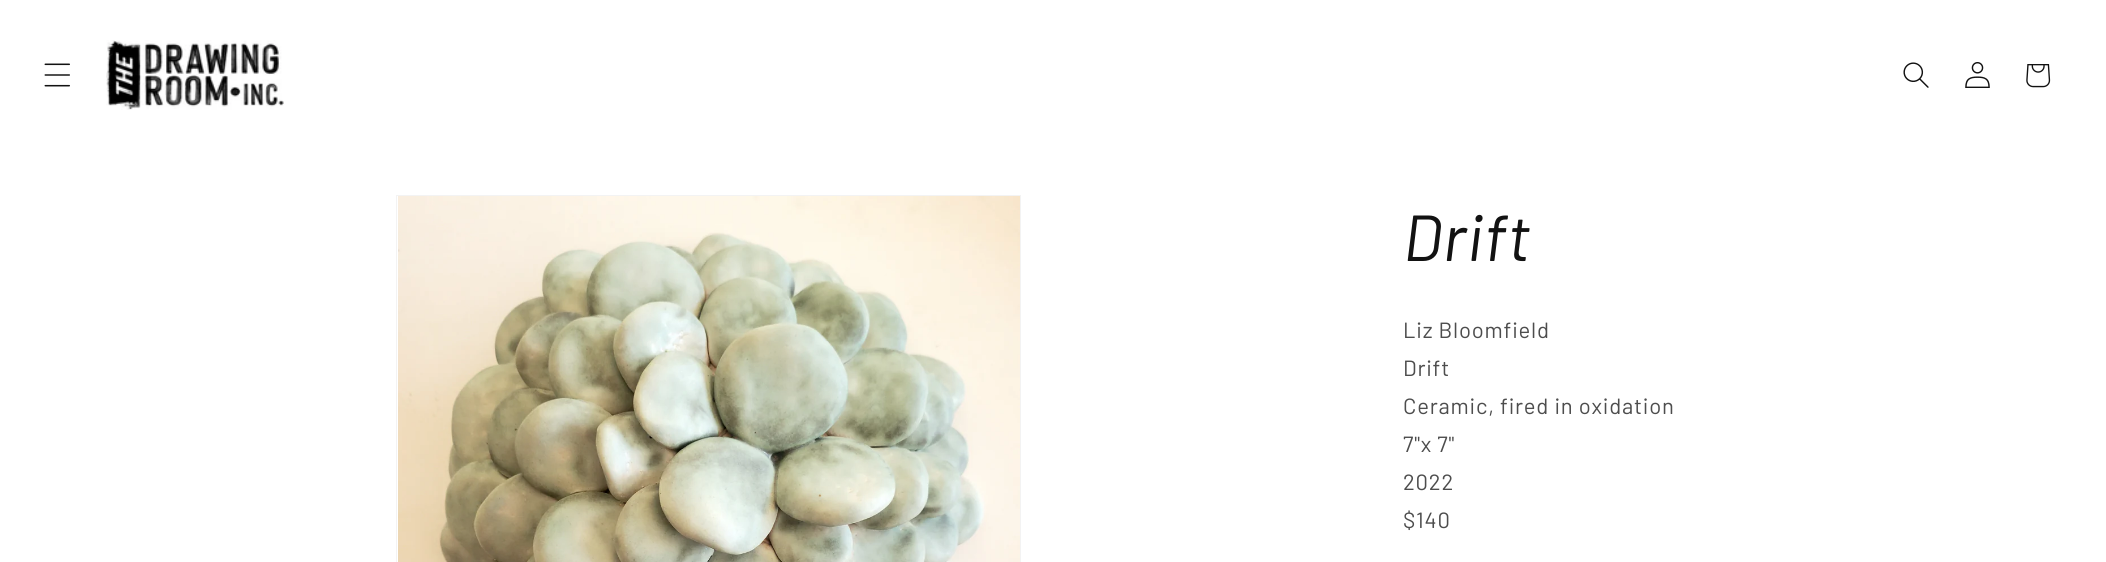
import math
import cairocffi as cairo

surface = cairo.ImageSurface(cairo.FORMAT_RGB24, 2106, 562)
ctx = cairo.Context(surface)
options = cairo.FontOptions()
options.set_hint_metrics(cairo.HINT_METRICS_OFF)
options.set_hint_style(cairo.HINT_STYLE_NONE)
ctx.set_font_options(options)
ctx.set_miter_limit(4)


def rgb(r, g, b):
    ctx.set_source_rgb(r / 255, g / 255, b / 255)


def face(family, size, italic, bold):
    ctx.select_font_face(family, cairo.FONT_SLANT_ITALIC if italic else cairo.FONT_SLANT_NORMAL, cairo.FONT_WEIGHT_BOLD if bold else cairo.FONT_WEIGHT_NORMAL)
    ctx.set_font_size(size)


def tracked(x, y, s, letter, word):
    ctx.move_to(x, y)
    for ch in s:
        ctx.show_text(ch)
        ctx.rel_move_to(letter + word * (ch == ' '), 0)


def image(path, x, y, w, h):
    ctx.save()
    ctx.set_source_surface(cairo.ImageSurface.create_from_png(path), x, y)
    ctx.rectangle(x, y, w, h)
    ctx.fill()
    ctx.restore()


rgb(255, 255, 255)
ctx.paint()
image('image0.png', 44, 63, 26, 24)
image('image1.png', 106, 40, 178, 70)
image('image2.png', 1903, 62, 26, 26)
image('image3.png', 1965, 62, 25, 26)
image('image4.png', 2026, 64, 25, 24)
ctx.rectangle(396.5, 195.5, 624, 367)
rgb(243, 243, 243)
ctx.set_line_width(1)
ctx.stroke()
image('image5.png', 398, 196, 622, 366)
face('Barlow', 65, 1, 0)
rgb(18, 18, 18)
tracked(1403, 261, 'Drift', 1, 0)
face('Barlow', 22, 0, 0)
rgb(77, 77, 77)
tracked(1403, 338, 'Liz Bloomfield', 0.8, 0)
tracked(1403, 376, 'Drift', 0.8, 0)
tracked(1403, 414, 'Ceramic, fired in oxidation', 0.8, 0)
tracked(1403, 452, '7"x 7"', 0.8, 0)
tracked(1403, 490, '2022', 0.8, 0)
tracked(1403, 528, '$140', 0.8, 0)
surface.write_to_png('render.png')
